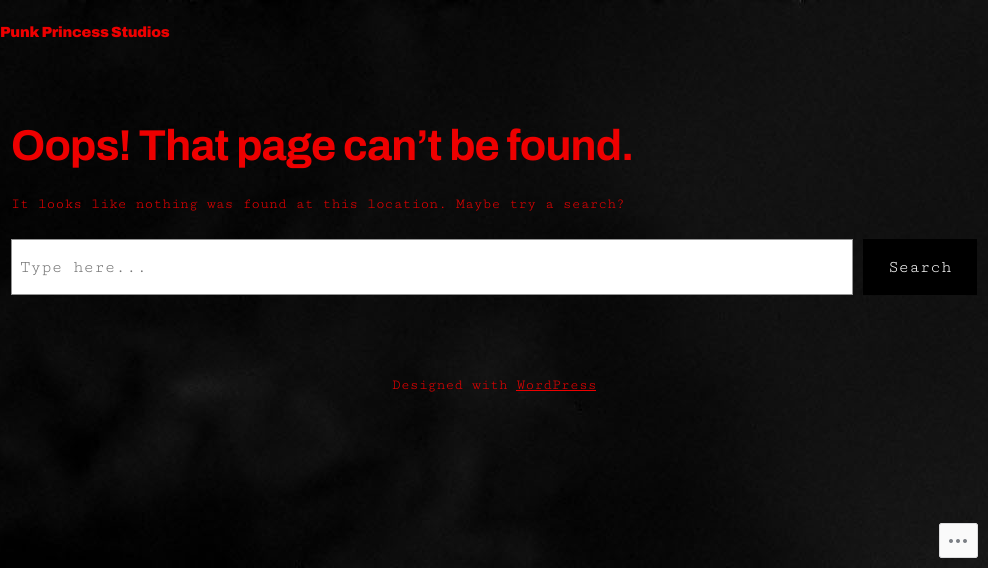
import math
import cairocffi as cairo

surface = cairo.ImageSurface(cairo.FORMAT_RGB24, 988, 568)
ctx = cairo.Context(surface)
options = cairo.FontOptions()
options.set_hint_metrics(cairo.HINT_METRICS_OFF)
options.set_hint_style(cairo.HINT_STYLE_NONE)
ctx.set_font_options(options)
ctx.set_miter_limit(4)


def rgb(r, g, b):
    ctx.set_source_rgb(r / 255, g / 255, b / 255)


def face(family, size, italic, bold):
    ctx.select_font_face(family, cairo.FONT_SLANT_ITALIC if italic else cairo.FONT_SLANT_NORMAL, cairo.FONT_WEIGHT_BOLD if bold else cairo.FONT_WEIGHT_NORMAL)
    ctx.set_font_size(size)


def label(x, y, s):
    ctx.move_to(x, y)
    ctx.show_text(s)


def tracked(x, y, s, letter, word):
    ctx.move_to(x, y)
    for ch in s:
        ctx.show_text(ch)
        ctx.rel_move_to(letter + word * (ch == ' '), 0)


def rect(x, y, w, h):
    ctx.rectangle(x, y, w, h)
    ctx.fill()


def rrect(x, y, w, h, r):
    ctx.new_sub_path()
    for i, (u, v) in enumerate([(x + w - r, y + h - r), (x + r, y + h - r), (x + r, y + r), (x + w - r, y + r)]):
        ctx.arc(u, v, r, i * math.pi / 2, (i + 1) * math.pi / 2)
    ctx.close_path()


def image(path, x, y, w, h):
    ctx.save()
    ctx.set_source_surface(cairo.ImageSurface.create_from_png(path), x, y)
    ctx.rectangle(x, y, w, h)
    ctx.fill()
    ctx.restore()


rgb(255, 255, 255)
ctx.paint()
image('image0.png', 0, 0, 988, 568)
face('Archivo Black', 14.7, 0, 0)
rgb(238, 0, 0)
tracked(0, 37, 'Punk Princess Studios', -0.25, 0)
face('Archivo', 43.2, 0, 1)
tracked(11, 160, 'Oops! That page can’t be found.', -0.85, 0)
face('Cutive Mono', 14.7, 0, 0)
label(11, 208, 'It looks like nothing was found at this location. Maybe try a search?')
rgb(255, 255, 255)
ctx.rectangle(11.5, 239.5, 841, 55)
ctx.fill_preserve()
rgb(148, 148, 148)
ctx.set_line_width(1)
ctx.stroke()
face('Cutive Mono', 17.5, 0, 0)
rgb(117, 117, 117)
label(20, 272, 'Type here...')
rgb(0, 0, 0)
rect(863, 239, 114, 56)
rgb(255, 255, 255)
label(888, 272, 'Search')
face('Cutive Mono', 14.7, 0, 0)
rgb(238, 0, 0)
label(392, 389, 'Designed with WordPress')
rect(516, 390, 80, 1)
ctx.set_source_rgba(1, 1, 1, 0.98)
rrect(939, 523, 39, 35, 3)
ctx.fill()
rrect(939.5, 523.5, 38, 34, 2.5)
ctx.set_source_rgba(0.863, 0.863, 0.871, 0.98)
ctx.stroke()
image('image1.png', 949, 539, 18, 4)
surface.write_to_png('render.png')
